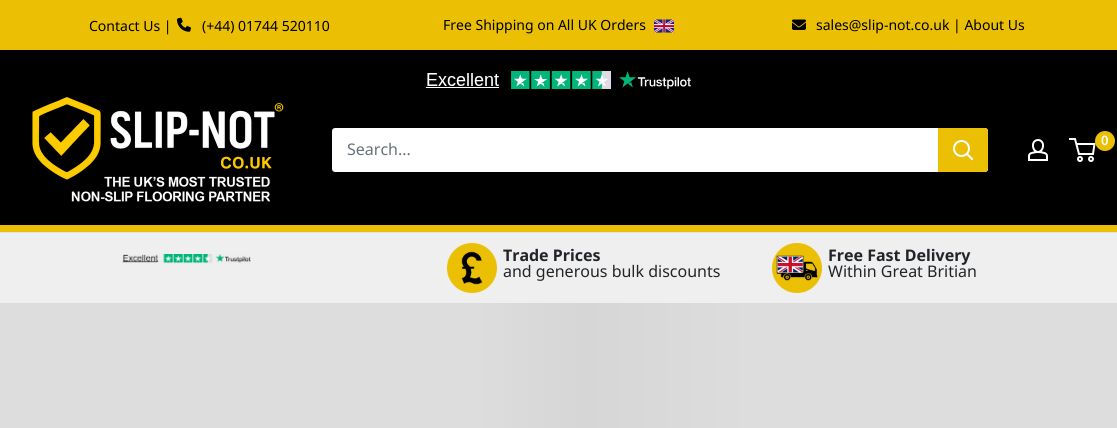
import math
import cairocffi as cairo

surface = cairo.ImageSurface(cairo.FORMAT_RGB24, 1117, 428)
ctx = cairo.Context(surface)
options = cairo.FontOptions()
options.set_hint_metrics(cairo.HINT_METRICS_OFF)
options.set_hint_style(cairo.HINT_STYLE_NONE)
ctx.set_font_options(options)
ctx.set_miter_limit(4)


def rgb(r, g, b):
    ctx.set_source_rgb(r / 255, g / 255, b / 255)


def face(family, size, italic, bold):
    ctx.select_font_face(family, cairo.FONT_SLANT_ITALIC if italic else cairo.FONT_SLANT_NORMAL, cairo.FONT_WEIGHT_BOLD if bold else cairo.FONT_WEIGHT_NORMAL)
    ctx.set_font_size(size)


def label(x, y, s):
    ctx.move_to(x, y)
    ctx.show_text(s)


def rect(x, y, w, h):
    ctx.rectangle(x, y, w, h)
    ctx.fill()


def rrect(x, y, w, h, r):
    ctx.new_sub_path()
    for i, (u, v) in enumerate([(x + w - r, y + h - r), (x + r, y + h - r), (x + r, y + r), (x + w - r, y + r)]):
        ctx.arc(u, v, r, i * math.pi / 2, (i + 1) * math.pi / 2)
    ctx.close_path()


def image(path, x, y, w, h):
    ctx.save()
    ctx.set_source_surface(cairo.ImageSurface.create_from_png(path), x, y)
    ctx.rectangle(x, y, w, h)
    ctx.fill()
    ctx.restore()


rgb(235, 191, 4)
ctx.paint()
face('Noto Sans', 14, 0, 0)
rgb(0, 0, 0)
label(89, 31, 'Contact Us |')
image('image0.png', 177, 17, 14, 15)
label(202, 31, '(+44) 01744 520110')
label(443, 30, 'Free Shipping on All UK Orders')
image('image1.png', 654, 19, 20, 14)
image('image2.png', 792, 19, 14, 11)
label(816, 30, 'sales@slip-not.co.uk | About Us')
rect(0, 50, 1117, 175)
image('image3.png', 425, 71, 266, 18)
image('image4.png', 32, 97, 252, 105)
image('image5.png', 1028, 139, 20, 22)
ctx.arc(1080, 159, 2, 0, 2 * math.pi)
rgb(255, 255, 255)
ctx.stroke()
ctx.arc(1091, 159, 2, 0, 2 * math.pi)
ctx.stroke()
ctx.new_path()
ctx.move_to(1076.5, 144)
ctx.line_to(1094.5, 144)
ctx.line_to(1093, 154)
ctx.line_to(1079, 154)
ctx.line_to(1075, 139)
ctx.line_to(1069, 139)
ctx.stroke()
rgb(235, 191, 4)
ctx.arc(1105, 141, 10, 0, 2 * math.pi)
ctx.fill()
face('Noto Sans SemiBold', 13, 0, 0)
rgb(255, 255, 255)
label(1101, 145, '0')
rrect(332, 128, 656, 44, 3)
ctx.fill()
face('Noto Sans', 16, 0, 0)
rgb(103, 114, 121)
label(347, 155, 'Search...')
rgb(235, 191, 4)
ctx.new_path()
ctx.move_to(938, 128)
ctx.line_to(985, 128)
ctx.curve_to(986.5, 128, 988, 129.5, 988, 131)
ctx.line_to(988, 169)
ctx.curve_to(988, 170.5, 986.5, 172, 985, 172)
ctx.line_to(938, 172)
ctx.close_path()
ctx.fill()
ctx.new_path()
ctx.move_to(972, 159)
ctx.line_to(967, 154)
rgb(255, 255, 255)
ctx.set_line_cap(cairo.LINE_CAP_SQUARE)
ctx.stroke()
ctx.arc(961.5, 148.5, 7.5, 0, 2 * math.pi)
ctx.set_line_cap(cairo.LINE_CAP_BUTT)
ctx.stroke()
rgb(225, 227, 228)
rect(0, 232, 1117, 1)
rgb(239, 239, 239)
rect(0, 233, 1117, 70)
image('image6.png', 122, 254, 129, 10)
image('image7.png', 447, 243, 50, 50)
face('Noto Sans', 16, 0, 1)
rgb(33, 37, 41)
label(503, 261, 'Trade Prices')
face('Noto Sans', 16, 0, 0)
label(503, 277, 'and generous bulk discounts')
image('image8.png', 772, 243, 50, 50)
face('Noto Sans', 16, 0, 1)
label(828, 261, 'Free Fast Delivery')
face('Noto Sans', 16, 0, 0)
label(828, 277, 'Within Great Britian')
rgb(221, 221, 221)
rect(0, 303, 383, 125)
gradient = cairo.LinearGradient(383, 303, 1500, 303)
gradient.add_color_stop_rgba(0.08, 0.867, 0.867, 0.867, 1)
gradient.add_color_stop_rgba(0.18, 0.839, 0.839, 0.839, 1)
gradient.add_color_stop_rgba(0.33, 0.867, 0.867, 0.867, 1)
ctx.set_source(gradient)
rect(383, 303, 734, 125)
surface.write_to_png('render.png')
